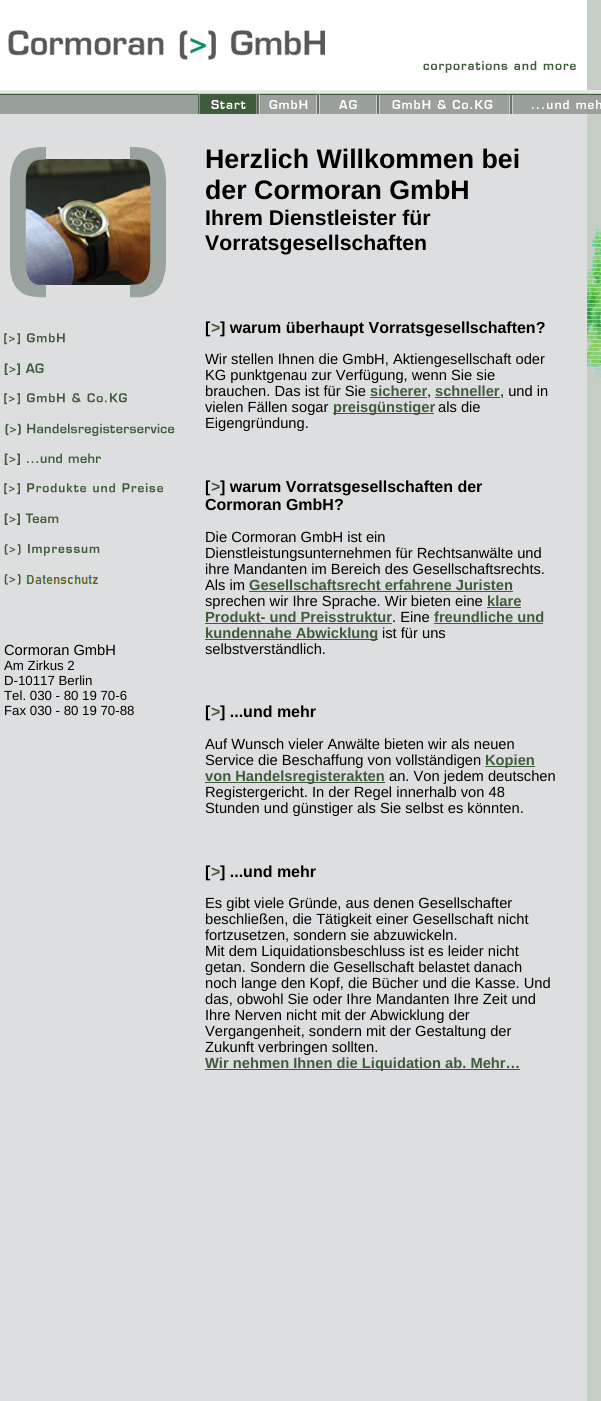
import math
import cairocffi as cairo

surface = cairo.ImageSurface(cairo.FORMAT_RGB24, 601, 1401)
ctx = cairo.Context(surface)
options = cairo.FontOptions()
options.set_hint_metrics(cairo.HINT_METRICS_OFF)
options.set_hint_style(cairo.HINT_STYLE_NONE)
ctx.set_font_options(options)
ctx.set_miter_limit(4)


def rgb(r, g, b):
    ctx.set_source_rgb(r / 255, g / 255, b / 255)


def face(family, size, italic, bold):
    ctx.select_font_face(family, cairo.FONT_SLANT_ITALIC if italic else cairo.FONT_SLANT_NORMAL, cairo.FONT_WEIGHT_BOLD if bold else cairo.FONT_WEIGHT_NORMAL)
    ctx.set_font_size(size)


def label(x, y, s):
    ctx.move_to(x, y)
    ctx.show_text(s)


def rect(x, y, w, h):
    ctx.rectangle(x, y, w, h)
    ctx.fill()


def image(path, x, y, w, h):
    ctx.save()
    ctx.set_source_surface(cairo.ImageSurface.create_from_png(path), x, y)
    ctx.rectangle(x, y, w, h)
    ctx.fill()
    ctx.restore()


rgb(255, 255, 255)
ctx.paint()
image('image0.png', 8, 30, 317, 30)
rgb(197, 206, 196)
rect(587, 0, 14, 90)
image('image1.png', 423, 61, 153, 12)
image('image2.png', 0, 90, 198, 24)
image('image3.png', 198, 90, 60, 24)
image('image4.png', 258, 90, 60, 24)
image('image5.png', 318, 90, 60, 24)
image('image6.png', 378, 90, 133, 24)
image('image7.png', 511, 90, 90, 24)
rgb(221, 222, 223)
rect(0, 114, 587, 1287)
image('image8.png', 10, 147, 156, 151)
image('image9.png', 4, 333, 61, 12)
image('image10.png', 4, 363, 40, 12)
image('image11.png', 4, 393, 123, 12)
image('image12.png', 5, 423, 170, 13)
image('image13.png', 4, 453, 97, 12)
image('image14.png', 4, 483, 159, 12)
image('image15.png', 4, 513, 55, 12)
image('image16.png', 4, 544, 96, 12)
image('image17.png', 4, 574, 95, 11)
face('Liberation Sans', 14.7, 0, 0)
rgb(0, 0, 0)
label(4, 655, 'Cormoran GmbH')
face('Liberation Sans', 13.25, 0, 0)
label(4, 670, 'Am Zirkus 2')
label(4, 685, 'D-10117 Berlin')
label(4, 700, 'Tel. 030 - 80 19 70-6')
label(4, 715, 'Fax 030 - 80 19 70-88')
face('Liberation Sans', 26.75, 0, 1)
label(205, 168, 'Herzlich Willkommen bei')
label(205, 199, 'der Cormoran GmbH')
face('Liberation Sans', 21.25, 0, 1)
label(205, 225, 'Ihrem Dienstleister für')
label(205, 250, 'Vorratsgesellschaften')
face('Liberation Sans', 16, 0, 1)
label(205, 333, '[')
rgb(63, 92, 58)
label(211, 333, '>')
rgb(0, 0, 0)
label(220, 333, '] warum überhaupt Vorratsgesellschaften?')
face('Liberation Sans', 14.7, 0, 0)
label(205, 364, 'Wir stellen Ihnen die GmbH, Aktiengesellschaft oder')
label(205, 380, 'KG punktgenau zur Verfügung, wenn Sie sie')
label(205, 396, 'brauchen. Das ist für Sie')
face('Liberation Sans', 14.7, 0, 1)
rgb(63, 92, 58)
label(370, 396, 'sicherer')
rect(370, 397, 57, 1)
face('Liberation Sans', 14.7, 0, 0)
rgb(0, 0, 0)
label(427, 396, ',')
face('Liberation Sans', 14.7, 0, 1)
rgb(63, 92, 58)
label(435, 396, 'schneller')
rect(435, 397, 65, 1)
face('Liberation Sans', 14.7, 0, 0)
rgb(0, 0, 0)
label(500, 396, ', und in')
label(205, 412, 'vielen Fällen sogar')
rgb(63, 92, 58)
rect(333, 413, 101, 1)
face('Liberation Sans', 14.7, 0, 1)
label(333, 412, 'preisgünstiger')
face('Liberation Sans', 14.7, 0, 0)
rgb(0, 0, 0)
label(438, 412, 'als die')
label(205, 428, 'Eigengründung.')
face('Liberation Sans', 16, 0, 1)
label(205, 492, '[')
rgb(63, 92, 58)
label(211, 492, '>')
rgb(0, 0, 0)
label(220, 492, '] warum Vorratsgesellschaften der')
label(205, 510, 'Cormoran GmbH?')
face('Liberation Sans', 14.7, 0, 0)
label(205, 542, 'Die Cormoran GmbH ist ein')
label(205, 558, 'Dienstleistungsunternehmen für Rechtsanwälte und')
label(205, 574, 'ihre Mandanten im Bereich des Gesellschaftsrechts.')
label(205, 590, 'Als im')
face('Liberation Sans', 14.7, 0, 1)
rgb(63, 92, 58)
label(249, 590, 'Gesellschaftsrecht erfahrene Juristen')
rect(249, 591, 264, 1)
face('Liberation Sans', 14.7, 0, 0)
rgb(0, 0, 0)
label(205, 606, 'sprechen wir Ihre Sprache. Wir bieten eine')
face('Liberation Sans', 14.7, 0, 1)
rgb(63, 92, 58)
label(487, 606, 'klare')
rect(487, 607, 34, 1)
label(205, 622, 'Produkt- und Preisstruktur')
rect(205, 623, 187, 1)
face('Liberation Sans', 14.7, 0, 0)
rgb(0, 0, 0)
label(392, 622, '. Eine')
face('Liberation Sans', 14.7, 0, 1)
rgb(63, 92, 58)
label(434, 622, 'freundliche und')
rect(434, 623, 109, 1)
rect(205, 639, 173, 1)
label(205, 638, 'kundennahe Abwicklung')
face('Liberation Sans', 14.7, 0, 0)
rgb(0, 0, 0)
label(382, 638, 'ist für uns')
label(205, 654, 'selbstverständlich.')
face('Liberation Sans', 16, 0, 1)
label(205, 717, '[')
rgb(63, 92, 58)
label(211, 717, '>')
rgb(0, 0, 0)
label(220, 717, '] ...und mehr')
face('Liberation Sans', 14.7, 0, 0)
label(205, 749, 'Auf Wunsch vieler Anwälte bieten wir als neuen')
label(205, 765, 'Service die Beschaffung von vollständigen')
rgb(63, 92, 58)
rect(485, 766, 50, 1)
face('Liberation Sans', 14.7, 0, 1)
label(485, 765, 'Kopien')
rect(205, 782, 180, 1)
label(205, 781, 'von Handelsregisterakten')
face('Liberation Sans', 14.7, 0, 0)
rgb(0, 0, 0)
label(389, 781, 'an. Von jedem deutschen')
label(205, 797, 'Registergericht. In der Regel innerhalb von 48')
label(205, 813, 'Stunden und günstiger als Sie selbst es könnten.')
face('Liberation Sans', 16, 0, 1)
label(205, 877, '[')
rgb(63, 92, 58)
label(211, 877, '>')
rgb(0, 0, 0)
label(220, 877, '] ...und mehr')
face('Liberation Sans', 14.7, 0, 0)
label(205, 908, 'Es gibt viele Gründe, aus denen Gesellschafter')
label(205, 924, 'beschließen, die Tätigkeit einer Gesellschaft nicht')
label(205, 940, 'fortzusetzen, sondern sie abzuwickeln.')
label(205, 956, 'Mit dem Liquidationsbeschluss ist es leider nicht')
label(205, 972, 'getan. Sondern die Gesellschaft belastet danach')
label(205, 988, 'noch lange den Kopf, die Bücher und die Kasse. Und')
label(205, 1004, 'das, obwohl Sie oder Ihre Mandanten Ihre Zeit und')
label(205, 1020, 'Ihre Nerven nicht mit der Abwicklung der')
label(205, 1036, 'Vergangenheit, sondern mit der Gestaltung der')
label(205, 1052, 'Zukunft verbringen sollten.')
rgb(63, 92, 58)
rect(205, 1069, 315, 1)
face('Liberation Sans', 14.7, 0, 1)
label(205, 1068, 'Wir nehmen Ihnen die Liquidation ab. Mehr…')
image('image18.png', 587, 114, 14, 435)
rgb(197, 206, 196)
rect(587, 549, 14, 852)
surface.write_to_png('render.png')
